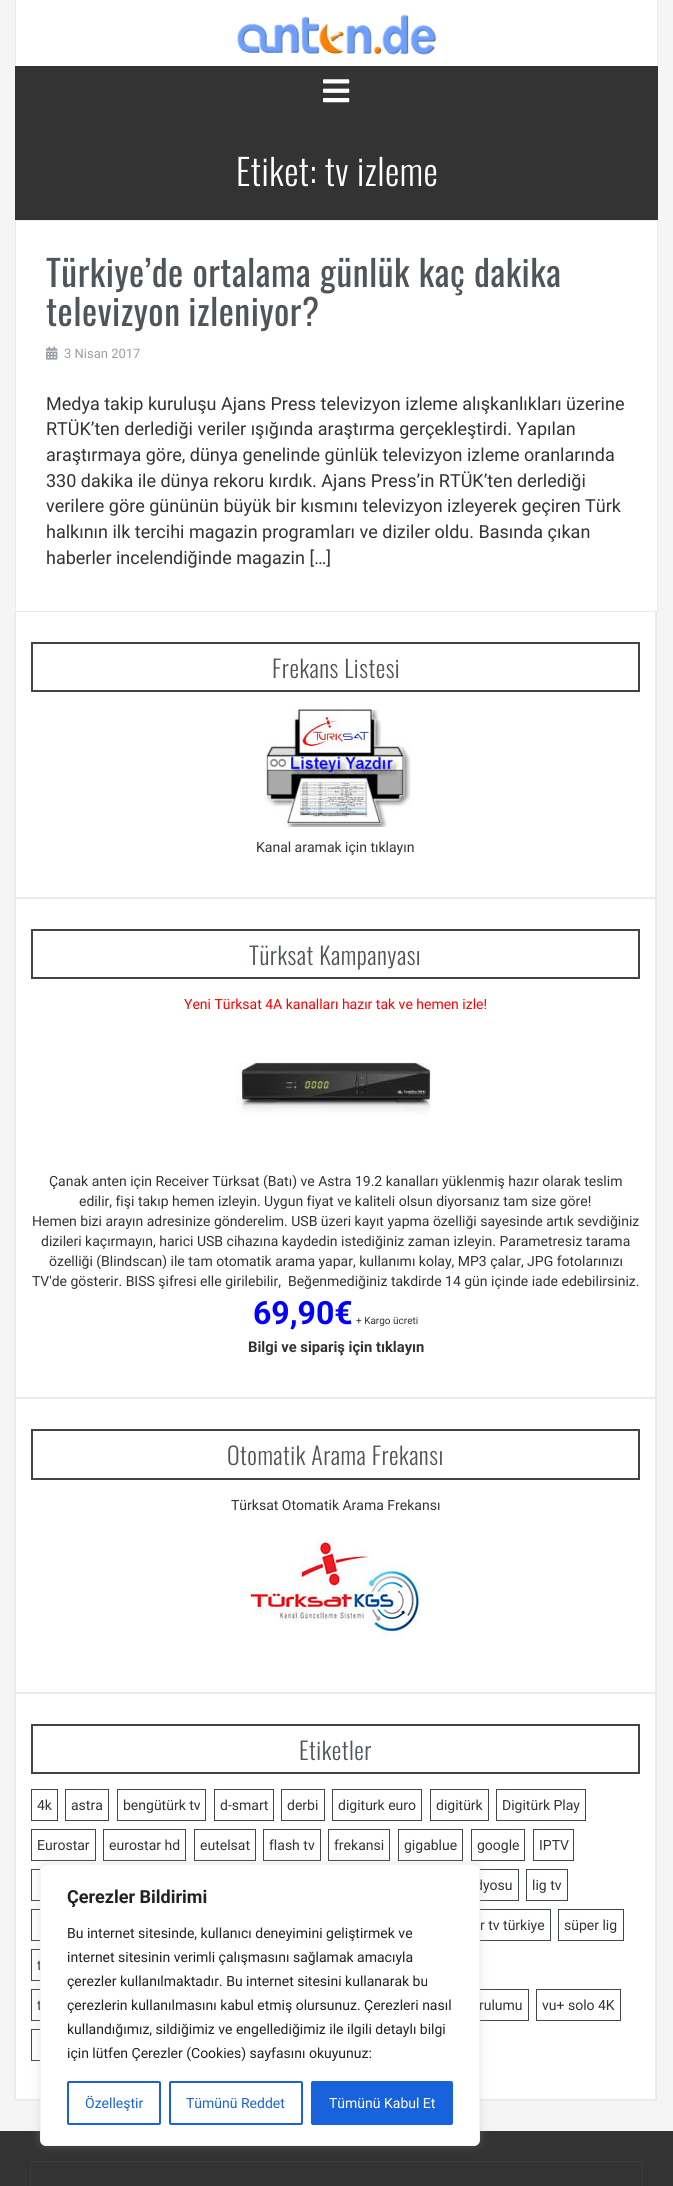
import math
import cairocffi as cairo

surface = cairo.ImageSurface(cairo.FORMAT_RGB24, 673, 2186)
ctx = cairo.Context(surface)
options = cairo.FontOptions()
options.set_hint_metrics(cairo.HINT_METRICS_OFF)
options.set_hint_style(cairo.HINT_STYLE_NONE)
ctx.set_font_options(options)
ctx.set_miter_limit(4)


def rgb(r, g, b):
    ctx.set_source_rgb(r / 255, g / 255, b / 255)


def face(family, size, italic, bold):
    ctx.select_font_face(family, cairo.FONT_SLANT_ITALIC if italic else cairo.FONT_SLANT_NORMAL, cairo.FONT_WEIGHT_BOLD if bold else cairo.FONT_WEIGHT_NORMAL)
    ctx.set_font_size(size)


def label(x, y, s):
    ctx.move_to(x, y)
    ctx.show_text(s)


def tracked(x, y, s, letter, word):
    ctx.move_to(x, y)
    for ch in s:
        ctx.show_text(ch)
        ctx.rel_move_to(letter + word * (ch == ' '), 0)


def rect(x, y, w, h):
    ctx.rectangle(x, y, w, h)
    ctx.fill()


def rrect(x, y, w, h, r):
    ctx.new_sub_path()
    for i, (u, v) in enumerate([(x + w - r, y + h - r), (x + r, y + h - r), (x + r, y + r), (x + w - r, y + r)]):
        ctx.arc(u, v, r, i * math.pi / 2, (i + 1) * math.pi / 2)
    ctx.close_path()


def soft_shadow(x, y, w, h, r, blur, alpha):
    ctx.push_group_with_content(cairo.CONTENT_ALPHA)
    ctx.set_operator(cairo.OPERATOR_SOURCE)
    for i in range(15, -16, -2):
        e = blur * i / 6
        if min(w, h) + 2 * e > 0:
            ctx.set_source_rgba(0, 0, 0, alpha * math.erfc((i - 1) / 8.5) / 2)
            rrect(x - e, y - e, w + 2 * e, h + 2 * e, max(0, min(r + e + blur * .6, min(w, h) / 2 + e)))
            ctx.fill()
    ctx.mask(ctx.pop_group())


def image(path, x, y, w, h):
    ctx.save()
    ctx.set_source_surface(cairo.ImageSurface.create_from_png(path), x, y)
    ctx.rectangle(x, y, w, h)
    ctx.fill()
    ctx.restore()


rgb(245, 245, 245)
ctx.paint()
rgb(255, 255, 255)
rect(16, 0, 641, 66)
rgb(235, 235, 235)
rect(657, 0, 1, 66)
rect(15, 0, 1, 66)
image('image0.png', 237, 14, 200, 41)
rgb(51, 51, 51)
rect(15, 66, 643, 154)
image('image1.png', 323, 79, 27, 24)
rgb(238, 238, 238)
rect(15, 220, 643, 1)
face('Oswald Light', 36, 0, 0)
rgb(255, 255, 255)
tracked(236, 186, 'Etiket: tv izleme', 0.5, 0)
rect(16, 221, 641, 390)
rgb(235, 235, 235)
rect(657, 221, 1, 391)
rect(15, 611, 643, 1)
rect(15, 221, 1, 391)
face('Oswald', 36, 0, 0)
rgb(80, 85, 89)
tracked(46, 287, 'Türkiye’de ortalama günlük kaç dakika', 0.5, 0)
tracked(46, 326, 'televizyon izleniyor?', 0.5, -1)
image('image2.png', 46, 346, 12, 14)
face('Roboto', 13, 0, 0)
rgb(152, 159, 168)
label(64, 358, '3 Nisan 2017')
face('Roboto', 18, 0, 0)
rgb(51, 51, 51)
label(46, 410, 'Medya takip kuruluşu Ajans Press televizyon izleme alışkanlıkları üzerine')
label(46, 435, 'RTÜK’ten derlediği veriler ışığında araştırma gerçekleştirdi. Yapılan')
label(46, 461, 'araştırmaya göre, dünya genelinde günlük televizyon izleme oranlarında')
label(46, 487, '330 dakika ile dünya rekoru kırdık. Ajans Press’in RTÜK’ten derlediği')
label(46, 512, 'verilere göre gününün büyük bir kısmını televizyon izleyerek geçiren Türk')
label(46, 538, 'halkının ilk tercihi magazin programları ve diziler oldu. Basında çıkan')
label(46, 564, 'haberler incelendiğinde magazin […]')
rgb(255, 255, 255)
rect(16, 612, 639, 285)
rgb(235, 235, 235)
rect(655, 612, 2, 1489)
rect(14, 897, 643, 2)
rect(14, 612, 2, 287)
ctx.rectangle(32, 643, 607, 48)
rgb(68, 68, 68)
ctx.stroke()
face('Oswald Light', 24, 0, 0)
rgb(80, 85, 89)
tracked(272, 678, 'Frekans Listesi', 0.5, 0)
image('image3.png', 265, 707, 146, 120)
face('Roboto', 14, 0, 0)
rgb(51, 51, 51)
label(256, 852, 'Kanal aramak için tıklayın')
rgb(255, 255, 255)
rect(16, 899, 639, 498)
rgb(235, 235, 235)
rect(14, 1397, 643, 2)
rect(14, 899, 2, 500)
ctx.rectangle(32, 930, 607, 48)
rgb(68, 68, 68)
ctx.stroke()
face('Oswald Light', 24, 0, 0)
rgb(80, 85, 89)
tracked(249, 965, 'Türksat Kampanyası', 0.5, 0)
face('Roboto', 14, 0, 0)
rgb(255, 0, 0)
label(184, 1009, 'Yeni Türksat 4A kanalları hazır tak ve hemen izle!')
image('image4.png', 236, 1062, 195, 53)
rgb(51, 51, 51)
label(49, 1186, 'Çanak anten için Receiver Türksat (Batı) ve Astra 19.2 kanalları yüklenmiş hazır olarak teslim')
label(79, 1206, 'edilir, fişi takıp hemen izleyin. Uygun fiyat ve kaliteli olsun diyorsanız tam size göre!')
label(32, 1226, 'Hemen bizi arayın adresinize gönderelim. USB üzeri kayıt yapma özelliği sayesinde artık sevdiğiniz')
label(41, 1246, 'dizileri kaçırmayın, harici USB cihazına kaydedin istediğiniz zaman izleyin. Parametresiz tarama')
label(49, 1266, 'özelliği (Blindscan) ile tam otomatik arama yapar, kullanımı kolay, MP3 çalar, JPG fotolarınızı')
label(32, 1286, 'TV\'de gösterir. BISS şifresi elle girilebilir,  Beğenmediğiniz takdirde 14 gün içinde iade edebilirsiniz.')
face('Roboto', 32, 0, 1)
rgb(0, 0, 255)
label(253, 1324, '69,90€')
face('Roboto', 10, 0, 0)
rgb(51, 51, 51)
label(356, 1324, '+ Kargo ücreti')
face('Roboto', 14.75, 0, 1)
label(248, 1352, 'Bilgi ve sipariş için tıklayın')
rgb(255, 255, 255)
rect(16, 1399, 639, 293)
rgb(235, 235, 235)
rect(14, 1692, 643, 2)
rect(14, 1399, 2, 295)
ctx.rectangle(32, 1430, 607, 49)
rgb(68, 68, 68)
ctx.stroke()
face('Oswald Light', 24, 0, 0)
rgb(80, 85, 89)
tracked(227, 1465, 'Otomatik Arama Frekansı', 0.5, 0)
face('Roboto', 14, 0, 0)
rgb(51, 51, 51)
label(231, 1510, 'Türksat Otomatik Arama Frekansı')
image('image5.png', 244, 1541, 176, 96)
rgb(255, 255, 255)
rect(16, 1694, 639, 405)
rgb(235, 235, 235)
rect(14, 2099, 643, 2)
rect(14, 1694, 2, 407)
ctx.rectangle(32, 1725, 607, 48)
rgb(68, 68, 68)
ctx.stroke()
face('Oswald Light', 24, 0, 0)
rgb(80, 85, 89)
tracked(299, 1760, 'Etiketler', 0.5, 0)
ctx.rectangle(31.5, 1789.5, 26, 31)
rgb(65, 71, 79)
ctx.set_line_width(1)
ctx.stroke()
face('Roboto', 14, 0, 0)
rgb(51, 51, 51)
label(37, 1810, '4k')
ctx.rectangle(65.5, 1789.5, 43, 31)
rgb(65, 71, 79)
ctx.stroke()
rgb(51, 51, 51)
label(71, 1810, 'astra')
ctx.rectangle(117.5, 1789.5, 88, 31)
rgb(65, 71, 79)
ctx.stroke()
rgb(51, 51, 51)
label(123, 1810, 'bengütürk tv')
ctx.rectangle(214.5, 1789.5, 59, 31)
rgb(65, 71, 79)
ctx.stroke()
rgb(51, 51, 51)
label(220, 1810, 'd-smart')
ctx.rectangle(281.5, 1789.5, 43, 31)
rgb(65, 71, 79)
ctx.stroke()
rgb(51, 51, 51)
label(287, 1810, 'derbi')
ctx.rectangle(332.5, 1789.5, 89, 31)
rgb(65, 71, 79)
ctx.stroke()
rgb(51, 51, 51)
label(338, 1810, 'digiturk euro')
ctx.rectangle(430.5, 1789.5, 58, 31)
rgb(65, 71, 79)
ctx.stroke()
rgb(51, 51, 51)
label(436, 1810, 'digitürk')
ctx.rectangle(496.5, 1789.5, 89, 31)
rgb(65, 71, 79)
ctx.stroke()
rgb(51, 51, 51)
label(502, 1810, 'Digitürk Play')
ctx.rectangle(31.5, 1829.5, 64, 31)
rgb(65, 71, 79)
ctx.stroke()
rgb(51, 51, 51)
label(37, 1850, 'Eurostar')
ctx.rectangle(103.5, 1829.5, 82, 31)
rgb(65, 71, 79)
ctx.stroke()
rgb(51, 51, 51)
label(109, 1850, 'eurostar hd')
ctx.rectangle(194.5, 1829.5, 61, 31)
rgb(65, 71, 79)
ctx.stroke()
rgb(51, 51, 51)
label(200, 1850, 'eutelsat')
ctx.rectangle(263.5, 1829.5, 57, 31)
rgb(65, 71, 79)
ctx.stroke()
rgb(51, 51, 51)
label(269, 1850, 'flash tv')
ctx.rectangle(328.5, 1829.5, 61, 31)
rgb(65, 71, 79)
ctx.stroke()
rgb(51, 51, 51)
label(334, 1850, 'frekansi')
ctx.rectangle(398.5, 1829.5, 64, 31)
rgb(65, 71, 79)
ctx.stroke()
rgb(51, 51, 51)
label(404, 1850, 'gigablue')
ctx.rectangle(471.5, 1829.5, 53, 31)
rgb(65, 71, 79)
ctx.stroke()
rgb(51, 51, 51)
label(477, 1850, 'google')
ctx.rectangle(533.5, 1829.5, 40, 31)
rgb(65, 71, 79)
ctx.stroke()
rgb(51, 51, 51)
label(539, 1850, 'IPTV')
ctx.rectangle(31.5, 1869.5, 75, 31)
rgb(65, 71, 79)
ctx.stroke()
ctx.rectangle(427.5, 1869.5, 91, 31)
ctx.stroke()
rgb(51, 51, 51)
label(475, 1890, 'dyosu')
ctx.rectangle(526.5, 1869.5, 41, 31)
rgb(65, 71, 79)
ctx.stroke()
rgb(51, 51, 51)
label(532, 1890, 'lig tv')
ctx.rectangle(31.5, 1909.5, 75, 31)
rgb(65, 71, 79)
ctx.stroke()
ctx.rectangle(455.5, 1909.5, 95, 31)
ctx.stroke()
rgb(51, 51, 51)
label(480, 1930, 'r tv türkiye')
ctx.rectangle(558.5, 1909.5, 65, 31)
rgb(65, 71, 79)
ctx.stroke()
rgb(51, 51, 51)
label(564, 1930, 'süper lig')
ctx.rectangle(31.5, 1949.5, 43, 31)
rgb(65, 71, 79)
ctx.stroke()
rgb(51, 51, 51)
label(37, 1970, 't')
ctx.rectangle(31.5, 1989.5, 176, 31)
rgb(65, 71, 79)
ctx.stroke()
rgb(51, 51, 51)
label(37, 2010, 't')
ctx.rectangle(387.5, 1989.5, 141, 31)
rgb(65, 71, 79)
ctx.stroke()
rgb(51, 51, 51)
label(479, 2010, 'rulumu')
ctx.rectangle(536.5, 1989.5, 84, 31)
rgb(65, 71, 79)
ctx.stroke()
rgb(51, 51, 51)
label(542, 2010, 'vu+ solo 4K')
ctx.rectangle(31.5, 2029.5, 115, 31)
rgb(65, 71, 79)
ctx.stroke()
rgb(51, 51, 51)
rect(0, 2131, 673, 55)
ctx.rectangle(30.5, 2161.5, 612, 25)
rgb(60, 60, 60)
ctx.stroke()
rgb(172, 171, 171)
soft_shadow(40, 1863, 440, 282, 6, 5, 0.3)
rgb(255, 255, 255)
rrect(40.5, 1864.5, 439, 281, 5.5)
ctx.fill_preserve()
rgb(244, 244, 244)
ctx.stroke()
face('Roboto', 18, 0, 1)
rgb(33, 33, 33)
label(67, 1903, 'Çerezler Bildirimi')
face('Roboto', 14, 0, 0)
label(67, 1938, 'Bu internet sitesinde, kullanıcı deneyimini geliştirmek ve')
label(67, 1962, 'internet sitesinin verimli çalışmasını sağlamak amacıyla')
label(67, 1986, 'çerezler kullanılmaktadır. Bu internet sitesini kullanarak bu')
label(67, 2010, 'çerezlerin kullanılmasını kabul etmiş olursunuz. Çerezleri nasıl')
label(67, 2034, 'kullandığımız, sildiğimiz ve engellediğimiz ile ilgili detaylı bilgi')
label(67, 2058, 'için lütfen Çerezler (Cookies) sayfasını okuyunuz:')
rrect(68, 2082, 92, 42, 1)
rgb(24, 99, 220)
ctx.set_line_width(2)
ctx.stroke()
label(85, 2108, 'Özelleştir')
rrect(170, 2082, 132, 42, 1)
ctx.stroke()
label(186, 2108, 'Tümünü Reddet')
rrect(312, 2082, 140, 42, 1)
ctx.fill_preserve()
ctx.stroke()
rgb(255, 255, 255)
label(329, 2108, 'Tümünü Kabul Et')
surface.write_to_png('render.png')
